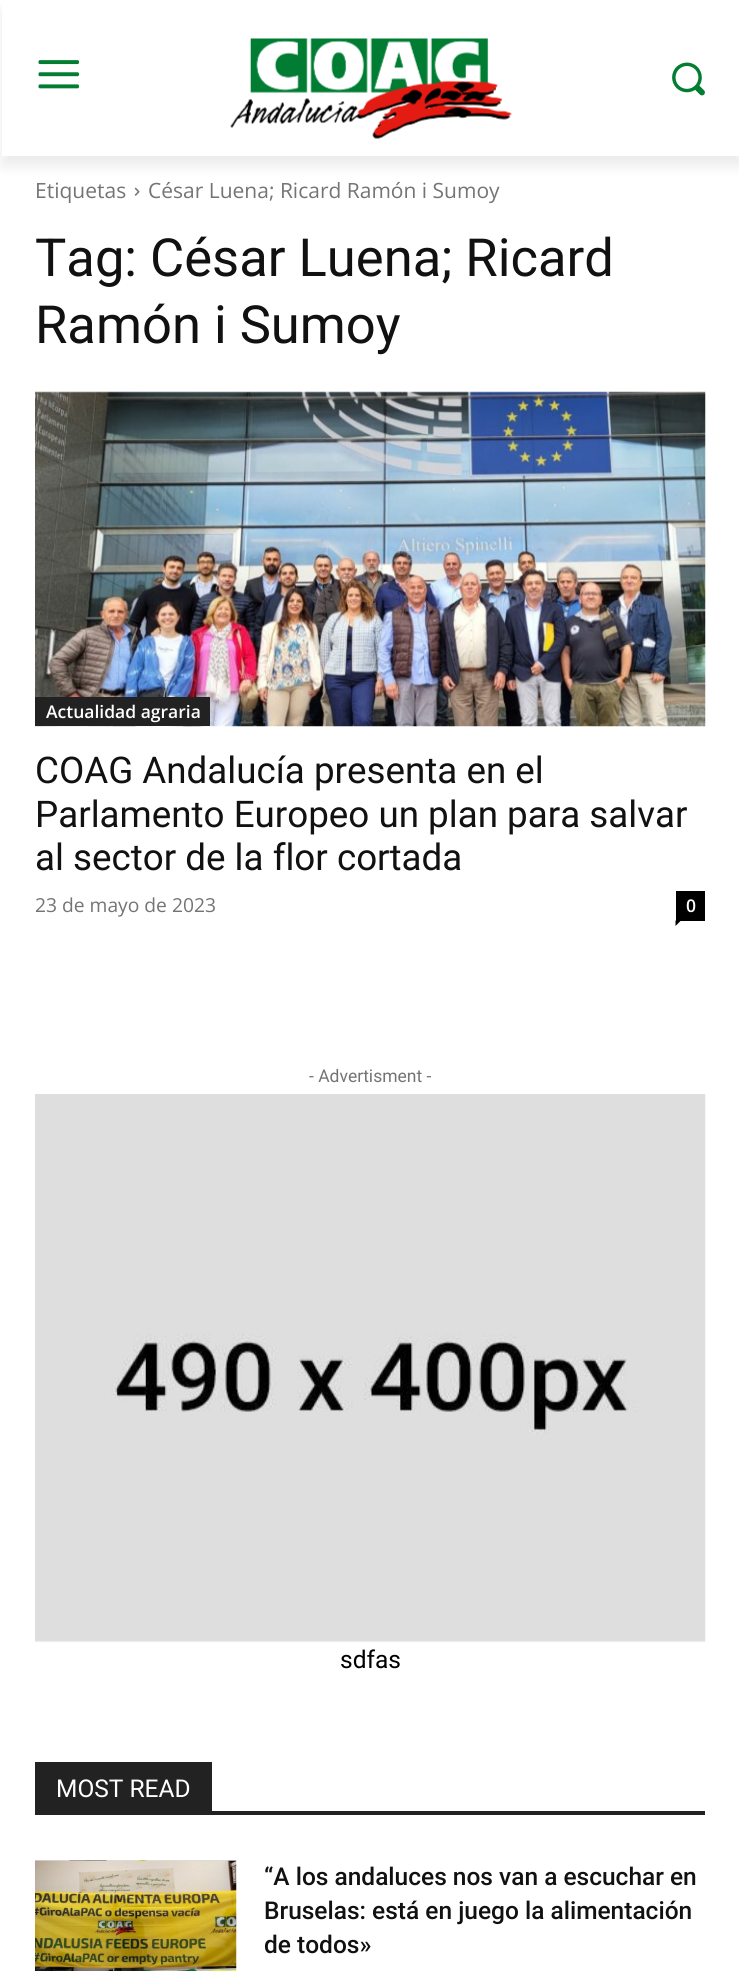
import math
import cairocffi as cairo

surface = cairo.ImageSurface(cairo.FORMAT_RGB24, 739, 1971)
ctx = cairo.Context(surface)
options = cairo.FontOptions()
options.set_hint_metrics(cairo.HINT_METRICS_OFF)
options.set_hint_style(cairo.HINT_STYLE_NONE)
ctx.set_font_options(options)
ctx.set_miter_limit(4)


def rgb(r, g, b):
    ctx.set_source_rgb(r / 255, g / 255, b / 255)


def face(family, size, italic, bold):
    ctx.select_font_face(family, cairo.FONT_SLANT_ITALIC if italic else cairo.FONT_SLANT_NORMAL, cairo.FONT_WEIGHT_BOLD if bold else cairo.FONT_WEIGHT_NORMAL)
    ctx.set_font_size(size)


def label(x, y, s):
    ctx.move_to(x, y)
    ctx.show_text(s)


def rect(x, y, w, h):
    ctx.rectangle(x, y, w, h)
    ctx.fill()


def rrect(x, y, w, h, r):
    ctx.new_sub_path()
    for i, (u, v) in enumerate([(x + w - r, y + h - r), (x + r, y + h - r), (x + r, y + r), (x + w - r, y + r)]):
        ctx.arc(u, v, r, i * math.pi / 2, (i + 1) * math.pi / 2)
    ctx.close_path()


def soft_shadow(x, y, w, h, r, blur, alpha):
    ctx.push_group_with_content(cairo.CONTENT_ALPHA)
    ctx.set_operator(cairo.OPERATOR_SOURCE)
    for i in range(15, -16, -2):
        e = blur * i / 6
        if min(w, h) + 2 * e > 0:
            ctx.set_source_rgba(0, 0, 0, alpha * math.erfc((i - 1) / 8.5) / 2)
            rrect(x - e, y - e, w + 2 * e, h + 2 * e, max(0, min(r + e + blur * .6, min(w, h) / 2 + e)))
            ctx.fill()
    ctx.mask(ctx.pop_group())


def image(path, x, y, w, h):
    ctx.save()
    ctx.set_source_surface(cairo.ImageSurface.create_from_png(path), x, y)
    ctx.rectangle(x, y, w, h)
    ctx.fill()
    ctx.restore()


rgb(255, 255, 255)
ctx.paint()
image('image0.png', 38, 60, 41, 29)
image('image1.png', 230, 38, 282, 101)
image('image2.png', 672, 62, 33, 34)
image('image3.png', 134, 187, 6, 9)
ctx.save()
ctx.set_fill_rule(cairo.FILL_RULE_EVEN_ODD)
ctx.new_path()
ctx.move_to(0, 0)
ctx.line_to(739, 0)
ctx.line_to(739, 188)
ctx.line_to(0, 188)
ctx.close_path()
ctx.move_to(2, 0)
ctx.line_to(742, 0)
ctx.line_to(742, 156)
ctx.line_to(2, 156)
ctx.close_path()
ctx.clip()
rgb(0, 0, 0)
soft_shadow(2, 11, 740, 155, 0, 7, 0.08)
ctx.restore()
face('Open Sans', 21, 0, 0)
rgb(116, 116, 116)
label(35, 198, 'Etiquetas')
label(148, 198, 'César Luena; Ricard Ramón i Sumoy')
face('Roboto', 52.5, 0, 0)
rgb(17, 17, 17)
label(35, 276, 'Tag: César Luena; Ricard')
label(35, 343, 'Ramón i Sumoy')
image('image4.png', 35, 391, 671, 336)
rgb(34, 34, 34)
rect(35, 697, 175, 29)
face('Open Sans SemiBold', 17.5, 0, 0)
rgb(255, 255, 255)
label(46, 718, 'Actualidad agraria')
face('Roboto', 36.75, 0, 0)
rgb(17, 17, 17)
label(35, 783, 'COAG Andalucía presenta en el')
label(35, 827, 'Parlamento Europeo un plan para salvar')
label(35, 870, 'al sector de la flor cortada')
face('Open Sans', 19.25, 0, 0)
rgb(116, 116, 116)
label(35, 912, '23 de mayo de 2023')
rgb(0, 0, 0)
rect(676, 891, 29, 30)
face('Open Sans SemiBold', 17.5, 0, 0)
rgb(255, 255, 255)
label(686, 912, '0')
rgb(0, 0, 0)
ctx.new_path()
ctx.move_to(675.5, 920.5)
ctx.line_to(681, 920.5)
ctx.line_to(675.5, 926)
ctx.close_path()
ctx.fill()
face('Roboto', 17.5, 0, 0)
rgb(116, 116, 116)
label(309, 1082, '- Advertisment -')
image('image5.png', 35, 1094, 671, 548)
face('Roboto', 24.5, 0, 0)
rgb(0, 0, 0)
label(340, 1668, 'sdfas')
rgb(34, 34, 34)
rect(35, 1811, 670, 4)
rect(35, 1762, 177, 49)
rgb(255, 255, 255)
label(56, 1797, 'MOST READ')
image('image6.png', 35, 1860, 202, 111)
face('Roboto Medium', 24.5, 0, 0)
rgb(17, 17, 17)
label(264, 1885, '“A los andaluces nos van a escuchar en')
label(264, 1919, 'Bruselas: está en juego la alimentación')
label(264, 1953, 'de todos»')
surface.write_to_png('render.png')
